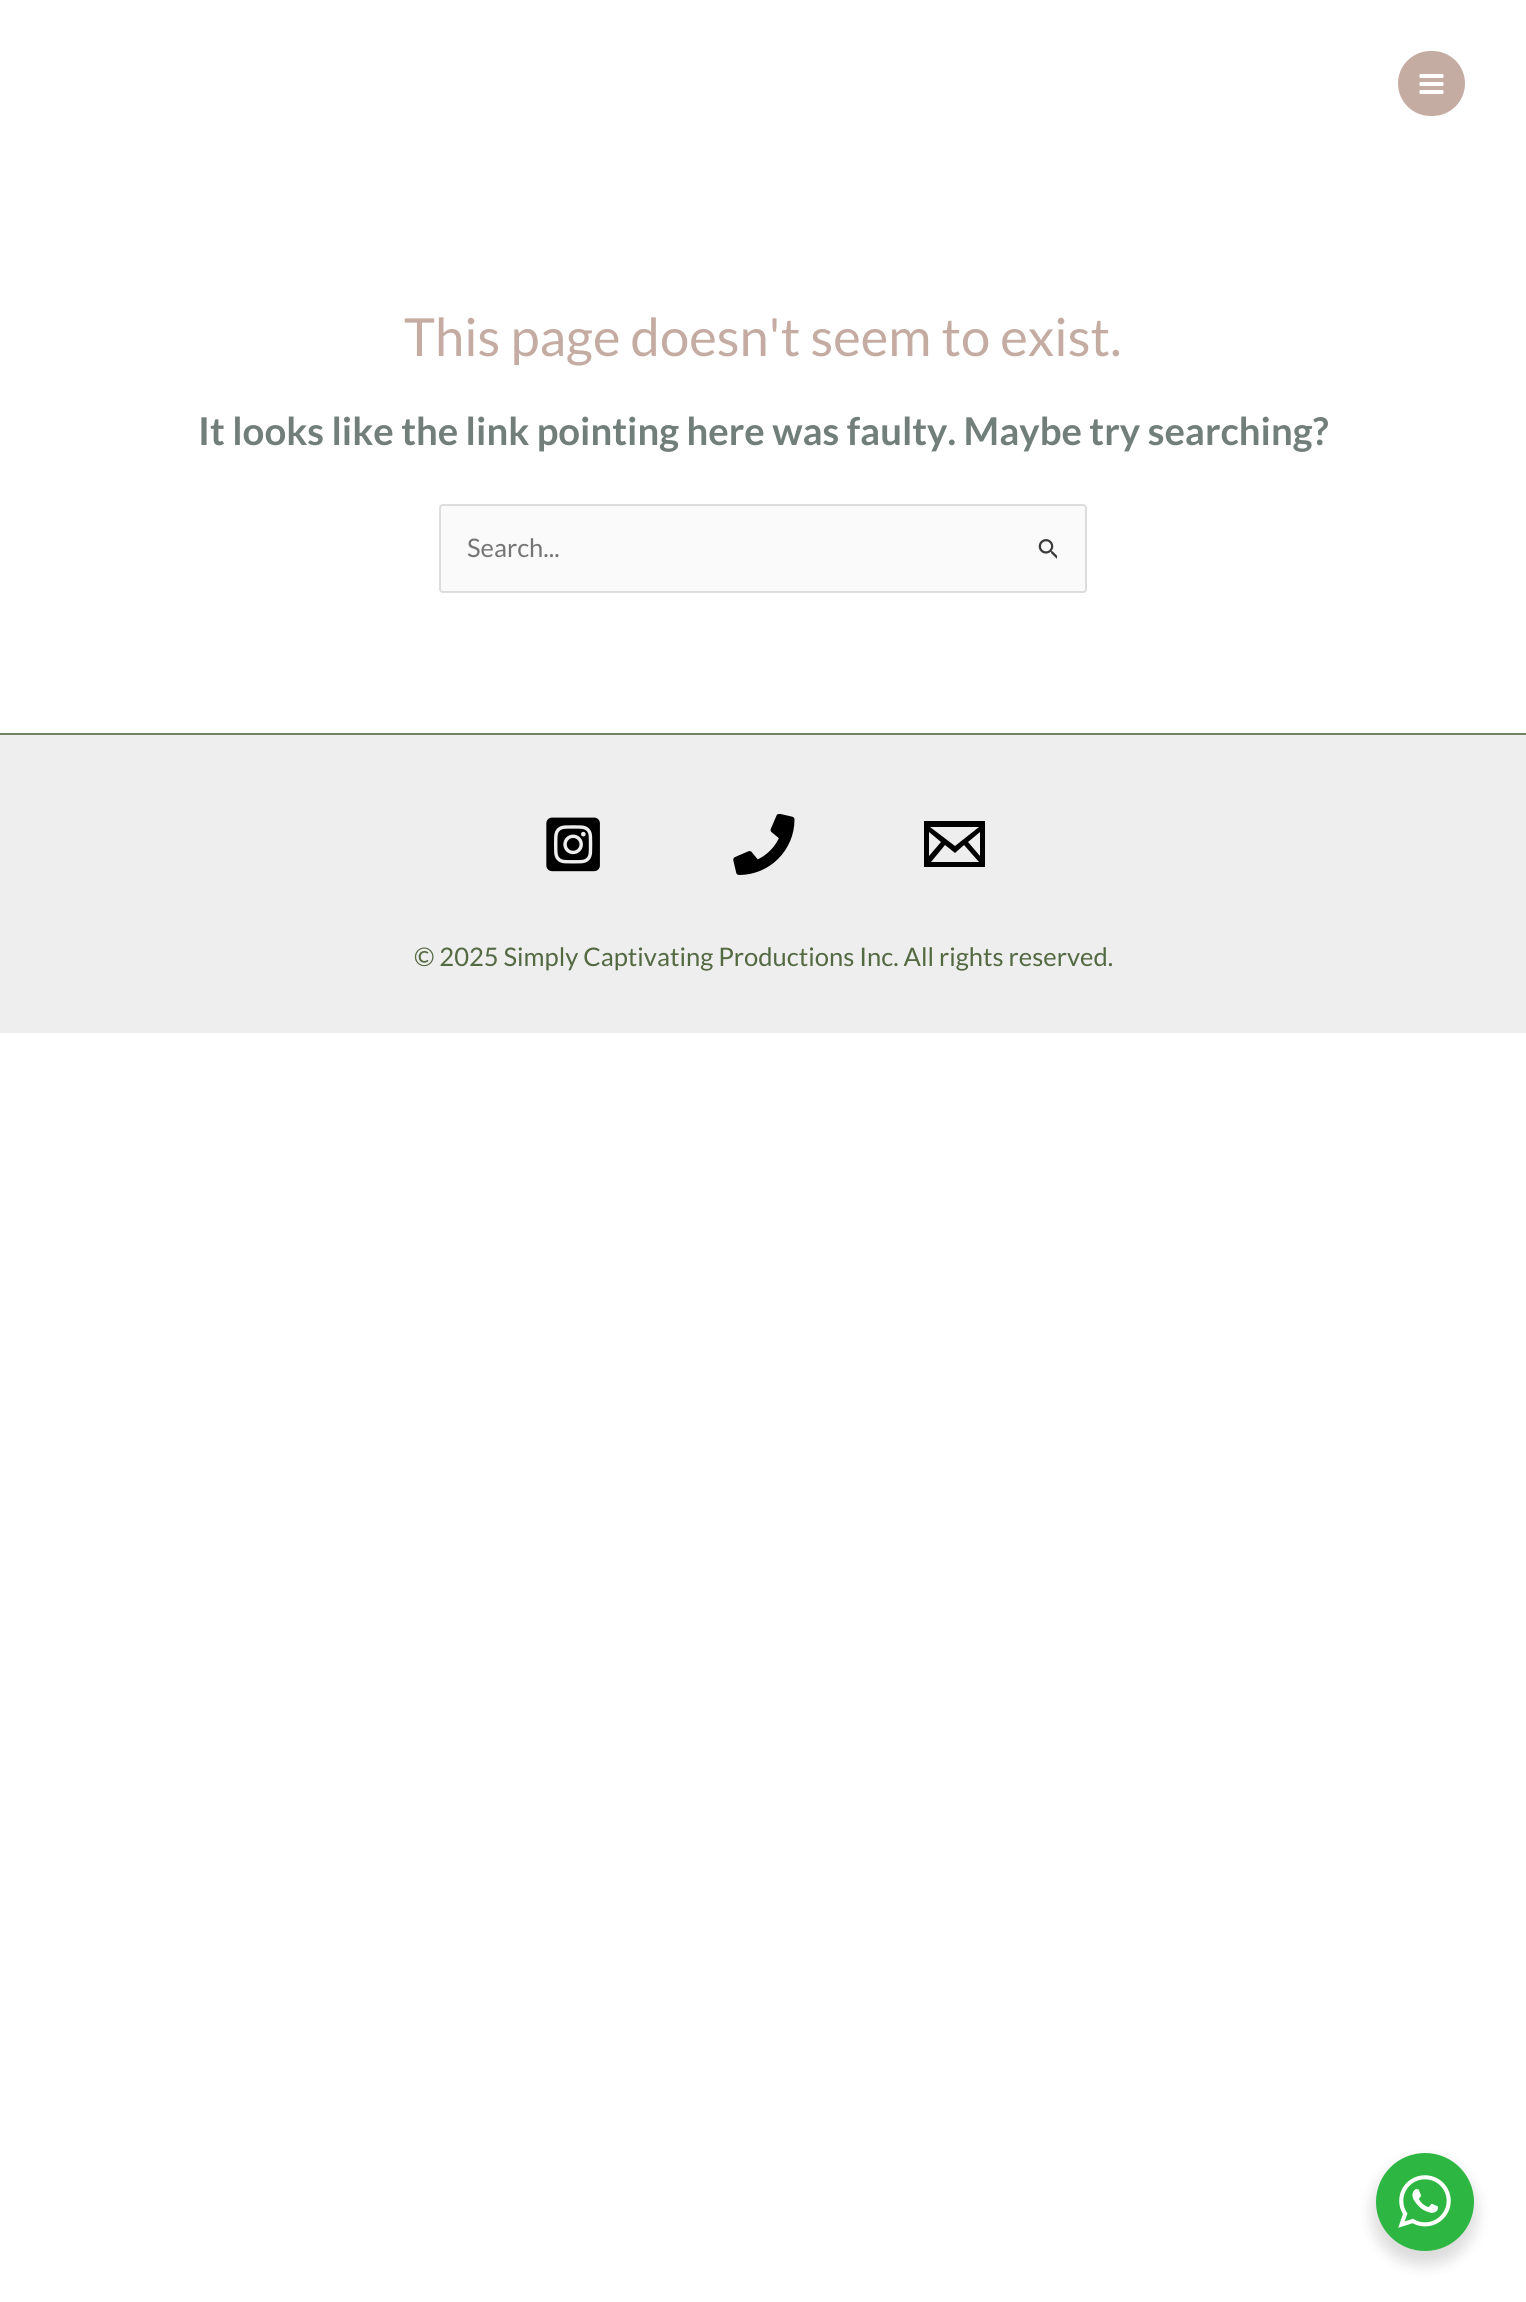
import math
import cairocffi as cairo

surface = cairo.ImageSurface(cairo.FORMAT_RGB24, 1526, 2302)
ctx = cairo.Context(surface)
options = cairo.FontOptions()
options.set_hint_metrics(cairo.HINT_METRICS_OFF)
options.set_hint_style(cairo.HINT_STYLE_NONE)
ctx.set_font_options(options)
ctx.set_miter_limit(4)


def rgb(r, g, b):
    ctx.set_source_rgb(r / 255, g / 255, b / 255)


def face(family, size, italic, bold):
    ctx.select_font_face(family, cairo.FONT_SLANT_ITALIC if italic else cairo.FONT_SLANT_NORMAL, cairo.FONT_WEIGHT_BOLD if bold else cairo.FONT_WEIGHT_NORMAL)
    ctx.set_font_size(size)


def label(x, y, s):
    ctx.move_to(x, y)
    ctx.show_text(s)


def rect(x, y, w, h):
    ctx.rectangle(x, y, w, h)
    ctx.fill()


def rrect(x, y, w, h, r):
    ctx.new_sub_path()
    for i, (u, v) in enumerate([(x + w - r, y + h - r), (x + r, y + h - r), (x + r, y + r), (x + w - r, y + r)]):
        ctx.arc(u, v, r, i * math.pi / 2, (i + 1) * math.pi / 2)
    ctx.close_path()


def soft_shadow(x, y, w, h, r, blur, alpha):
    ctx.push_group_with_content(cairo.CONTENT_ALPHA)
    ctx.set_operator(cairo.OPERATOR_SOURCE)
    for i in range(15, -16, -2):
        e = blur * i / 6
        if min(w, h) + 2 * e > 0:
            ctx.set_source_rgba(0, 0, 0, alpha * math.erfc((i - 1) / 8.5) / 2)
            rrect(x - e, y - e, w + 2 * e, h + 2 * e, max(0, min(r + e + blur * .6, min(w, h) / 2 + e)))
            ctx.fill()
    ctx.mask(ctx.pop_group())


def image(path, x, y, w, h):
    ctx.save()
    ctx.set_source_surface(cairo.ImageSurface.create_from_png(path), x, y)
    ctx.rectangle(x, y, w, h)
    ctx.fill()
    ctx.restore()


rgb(255, 255, 255)
ctx.paint()
rgb(197, 172, 163)
rrect(1398, 51, 67, 65, 32.5)
ctx.fill()
image('image0.png', 1419, 74, 25, 20)
face('Lato', 52.5, 0, 0)
label(404, 356, 'This page doesn\'t seem to exist.')
face('Lato', 38.3, 0, 1)
rgb(114, 126, 121)
label(198, 445, 'It looks like the link pointing here was faulty. Maybe try searching?')
rgb(250, 250, 250)
rrect(440, 505, 646, 87, 3)
ctx.fill_preserve()
rgb(221, 221, 221)
ctx.stroke()
face('Lato', 25.55, 0, 0)
rgb(117, 117, 117)
label(467, 557, 'Search...')
image('image1.png', 1038, 539, 19, 20)
rgb(238, 238, 238)
rect(0, 735, 1526, 298)
rgb(113, 131, 99)
rect(0, 733, 1526, 2)
image('image2.png', 546, 817, 54, 55)
image('image3.png', 733, 814, 62, 61)
rgb(0, 0, 0)
ctx.new_path()
ctx.move_to(924, 821)
ctx.line_to(924, 867)
ctx.line_to(985, 867)
ctx.line_to(985, 821)
ctx.close_path()
ctx.move_to(941, 842)
ctx.line_to(929, 856)
ctx.line_to(929, 832)
ctx.close_path()
ctx.move_to(930, 827)
ctx.line_to(979, 827)
ctx.line_to(955, 846)
ctx.close_path()
ctx.move_to(945, 845)
ctx.line_to(955, 853)
ctx.line_to(964, 845)
ctx.line_to(979, 862)
ctx.line_to(931, 862)
ctx.close_path()
ctx.move_to(968, 842)
ctx.line_to(980, 832)
ctx.line_to(980, 856)
ctx.close_path()
ctx.fill()
rgb(83, 105, 66)
label(414, 966, '© 2025 Simply Captivating Productions Inc. All rights reserved.')
rgb(0, 0, 0)
soft_shadow(1372, 2160, 105, 105, 52.5, 7, 0.14)
rgb(45, 183, 66)
ctx.arc(1425, 2202, 49, 0, 2 * math.pi)
ctx.fill()
image('image4.png', 1398, 2175, 53, 53)
surface.write_to_png('render.png')
